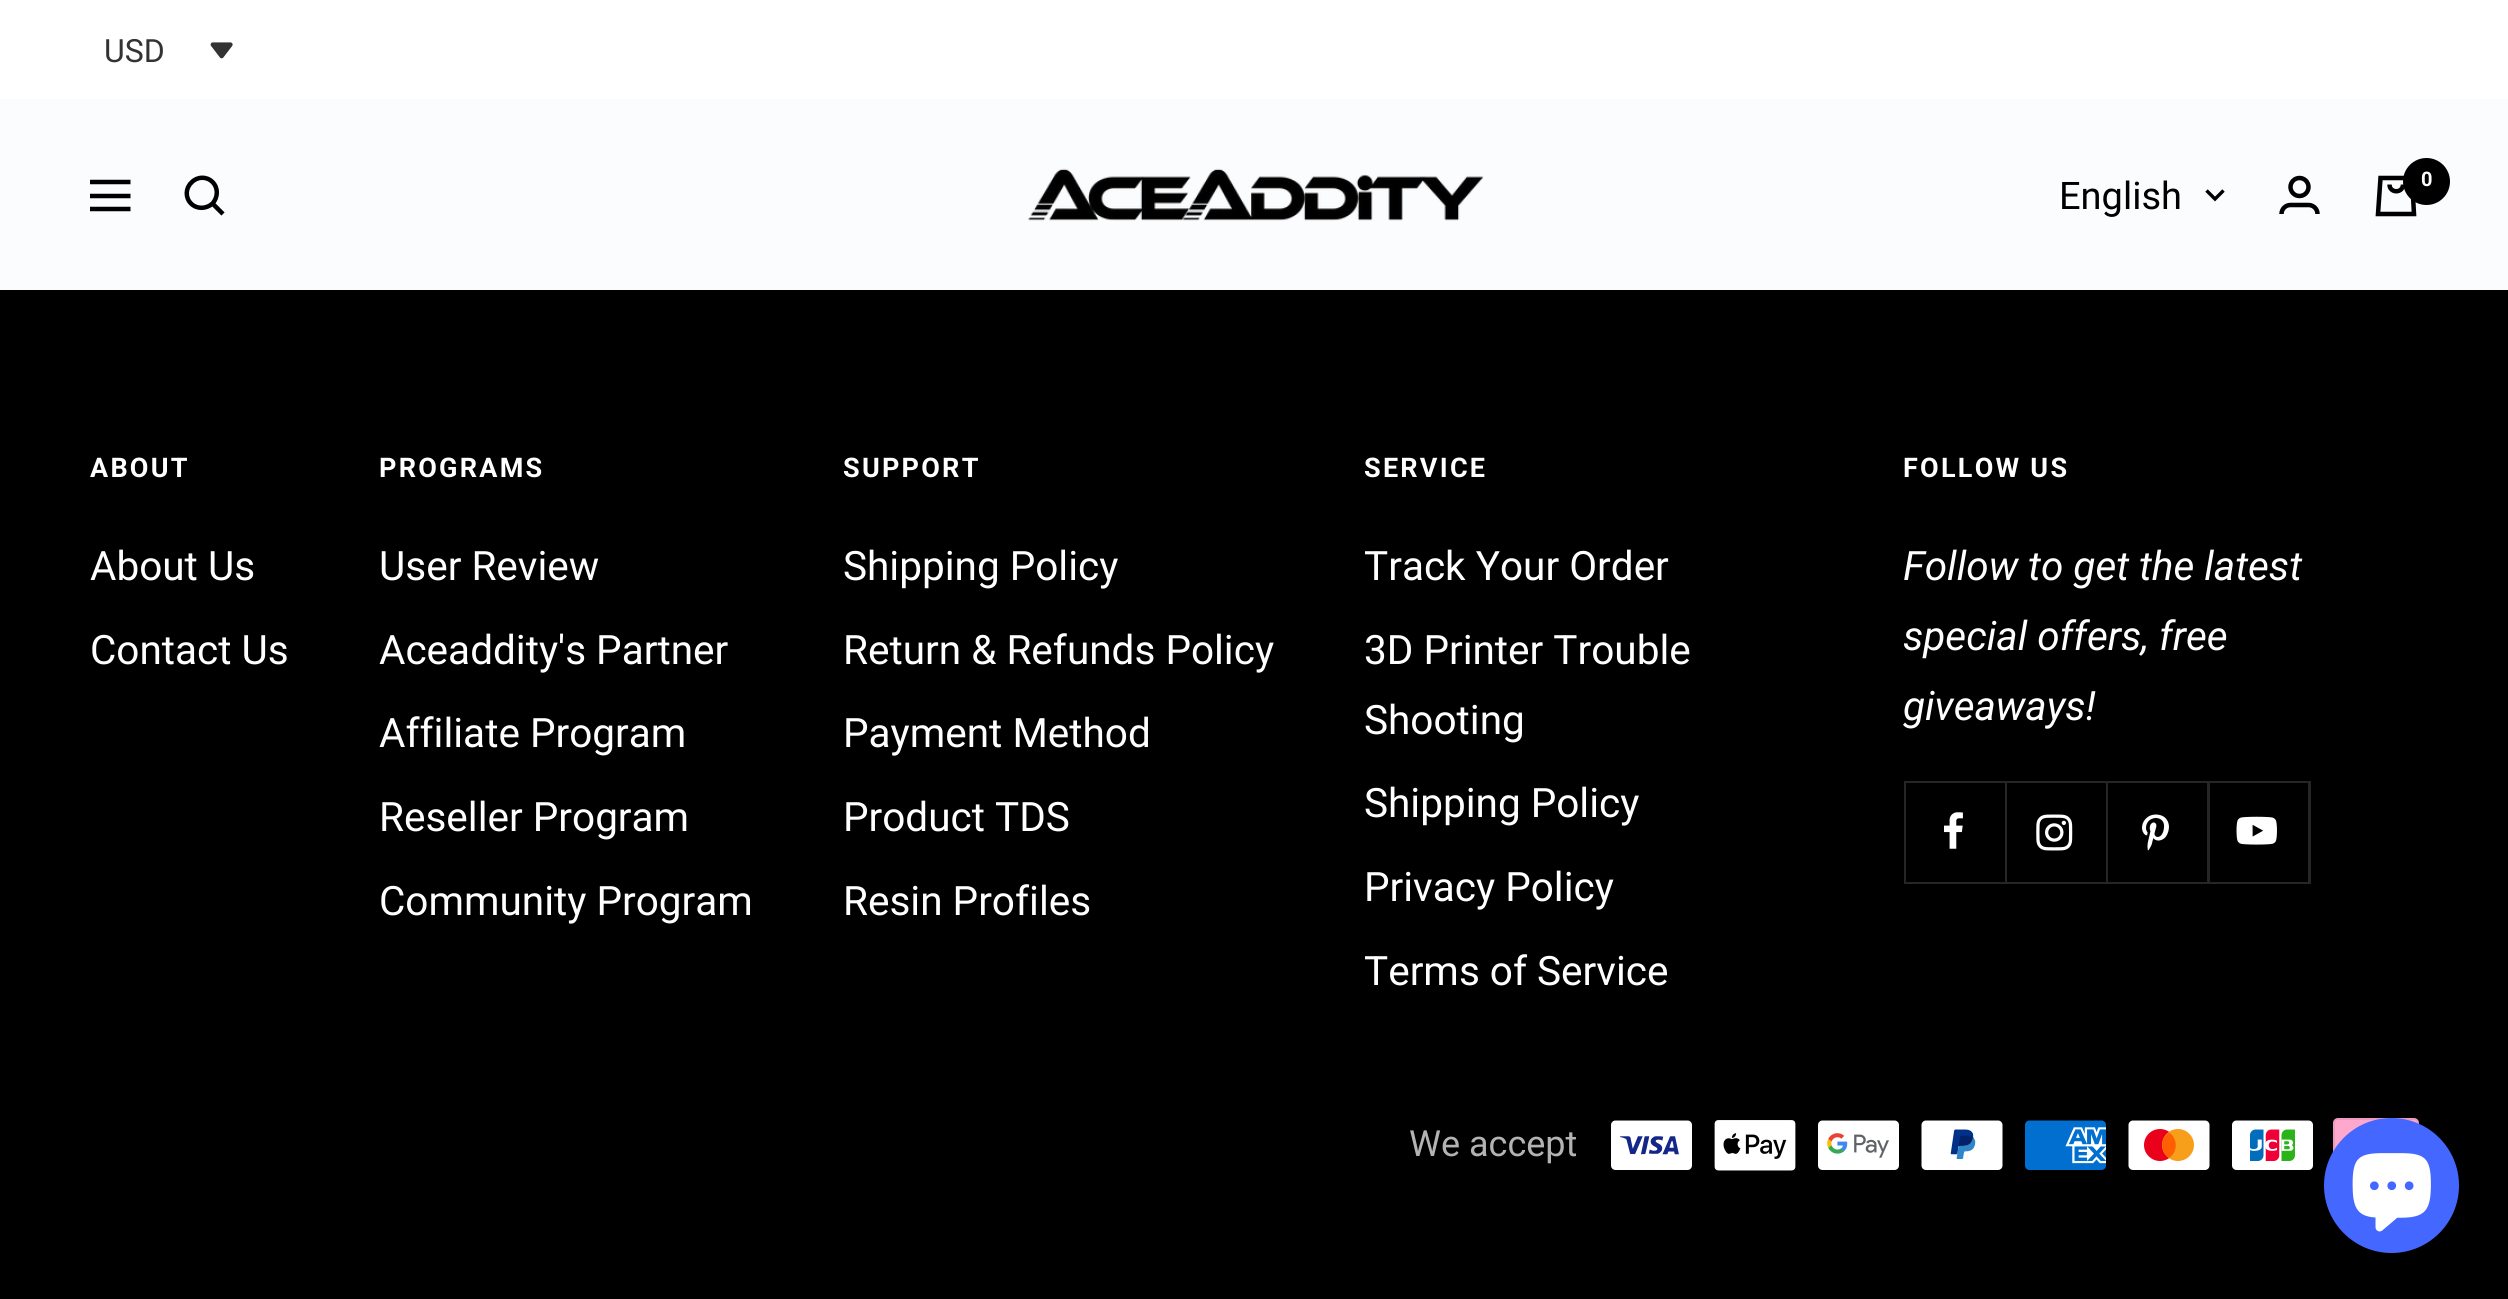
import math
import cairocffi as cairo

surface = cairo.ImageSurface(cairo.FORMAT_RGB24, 2508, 1299)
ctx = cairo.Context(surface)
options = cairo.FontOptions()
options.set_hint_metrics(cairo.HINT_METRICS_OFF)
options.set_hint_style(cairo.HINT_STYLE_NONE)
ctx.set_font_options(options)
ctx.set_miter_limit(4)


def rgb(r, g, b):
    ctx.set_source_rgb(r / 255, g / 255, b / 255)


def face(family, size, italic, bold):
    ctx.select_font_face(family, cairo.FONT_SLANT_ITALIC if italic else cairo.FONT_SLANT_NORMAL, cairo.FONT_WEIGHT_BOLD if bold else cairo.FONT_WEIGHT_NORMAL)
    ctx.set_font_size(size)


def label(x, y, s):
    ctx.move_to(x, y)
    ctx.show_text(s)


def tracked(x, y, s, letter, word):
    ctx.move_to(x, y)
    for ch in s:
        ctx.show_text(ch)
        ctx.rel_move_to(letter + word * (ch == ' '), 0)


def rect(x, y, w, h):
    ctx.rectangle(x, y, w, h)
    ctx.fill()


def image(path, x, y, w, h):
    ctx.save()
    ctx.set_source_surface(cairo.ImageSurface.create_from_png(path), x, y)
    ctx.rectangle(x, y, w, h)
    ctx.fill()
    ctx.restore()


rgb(255, 255, 255)
ctx.paint()
face('Roboto', 32, 0, 0)
rgb(51, 51, 51)
label(104, 62, 'USD')
image('image0.png', 210, 42, 23, 17)
rgb(251, 252, 254)
rect(0, 99, 2508, 191)
ctx.new_path()
ctx.move_to(90, 182)
ctx.line_to(130.5, 182)
ctx.move_to(90, 209)
ctx.line_to(130.5, 209)
ctx.close_path()
ctx.move_to(90, 196)
ctx.line_to(130.5, 196)
ctx.close_path()
rgb(0, 0, 0)
ctx.set_line_width(4.5)
ctx.stroke()
ctx.new_path()
ctx.move_to(212.5, 203.5)
ctx.curve_to(218, 197.5, 218.5, 188, 212.5, 182)
ctx.curve_to(206.5, 176, 197, 176.5, 191.5, 182.5)
ctx.curve_to(185.5, 188, 185, 197.5, 191, 203.5)
ctx.curve_to(197, 209.5, 206.5, 209, 212.5, 203.5)
ctx.close_path()
ctx.move_to(212.5, 203.5)
ctx.line_to(223, 214)
ctx.stroke()
image('image1.png', 1028, 168, 456, 53)
face('Roboto', 38, 0, 0)
label(2059, 209, 'English')
ctx.new_path()
ctx.move_to(2206.5, 190.5)
ctx.line_to(2215, 199)
ctx.line_to(2223.5, 190.5)
ctx.set_line_width(3.4)
ctx.stroke()
ctx.arc(2299.5, 187, 9, 0, 2 * math.pi)
ctx.set_line_width(4.5)
ctx.stroke()
ctx.new_path()
ctx.move_to(2281.5, 214)
ctx.curve_to(2281.5, 209, 2285.5, 205, 2290.5, 205)
ctx.line_to(2308.5, 205)
ctx.curve_to(2313.5, 205, 2317.5, 209, 2317.5, 214)
ctx.stroke()
ctx.new_path()
ctx.move_to(2380.5, 178)
ctx.line_to(2412, 178)
ctx.line_to(2414, 214)
ctx.line_to(2378, 214)
ctx.close_path()
ctx.move_to(2389.5, 184.5)
ctx.curve_to(2389.5, 193.5, 2403, 193.5, 2403, 184.5)
ctx.stroke()
ctx.arc(2426.5, 181.5, 23.5, 0, 2 * math.pi)
ctx.fill()
face('Roboto', 20, 0, 1)
rgb(255, 255, 255)
label(2421, 186, '0')
rgb(0, 0, 0)
rect(0, 290, 2508, 1009)
face('Roboto', 27, 0, 1)
rgb(255, 255, 255)
tracked(90, 477, 'ABOUT', 2.25, 0)
face('Roboto', 40.5, 0, 0)
label(90, 580, 'About Us')
label(90, 664, 'Contact Us')
face('Roboto', 27, 0, 1)
tracked(379, 477, 'PROGRAMS', 2.25, 0)
face('Roboto', 40.5, 0, 0)
label(379, 580, 'User Review')
label(379, 664, 'Aceaddity\'s Partner')
label(379, 747, 'Affiliate Program')
label(379, 831, 'Reseller Program')
label(379, 915, 'Community Program')
face('Roboto', 27, 0, 1)
tracked(843, 477, 'SUPPORT', 2.25, 0)
face('Roboto', 40.5, 0, 0)
label(843, 580, 'Shipping Policy')
label(843, 664, 'Return & Refunds Policy')
label(843, 747, 'Payment Method')
label(843, 831, 'Product TDS')
label(843, 915, 'Resin Profiles')
face('Roboto', 27, 0, 1)
tracked(1364, 477, 'SERVICE', 2.25, 0)
face('Roboto', 40.5, 0, 0)
label(1364, 580, 'Track Your Order')
label(1364, 664, '3D Printer Trouble')
label(1364, 734, 'Shooting')
label(1364, 817, 'Shipping Policy')
label(1364, 901, 'Privacy Policy')
label(1364, 985, 'Terms of Service')
face('Roboto', 27, 0, 1)
tracked(1903, 477, 'FOLLOW US', 2.25, 0)
face('Roboto', 40.5, 1, 0)
label(1903, 580, 'Follow to get the latest')
label(1903, 650, 'special offers, free')
label(1903, 720, 'giveaways!')
rgb(38, 38, 38)
ctx.new_path()
ctx.move_to(1906, 882)
ctx.line_to(1906, 884)
ctx.line_to(2007, 884)
ctx.line_to(2007, 783)
ctx.line_to(2005, 783)
ctx.line_to(2005, 882)
ctx.close_path()
ctx.fill()
ctx.new_path()
ctx.move_to(1904, 882)
ctx.line_to(1904, 884)
ctx.line_to(2005, 884)
ctx.line_to(2005, 783)
ctx.line_to(2005, 882)
ctx.close_path()
ctx.fill()
rect(1904, 781, 103, 2)
rect(1904, 781, 2, 101)
image('image2.png', 1944, 812, 19, 37)
ctx.new_path()
ctx.move_to(2007, 882)
ctx.line_to(2007, 884)
ctx.line_to(2108, 884)
ctx.line_to(2108, 783)
ctx.line_to(2106, 783)
ctx.line_to(2106, 882)
ctx.close_path()
ctx.fill()
rect(2005, 781, 103, 2)
image('image3.png', 2036, 814, 37, 37)
ctx.new_path()
ctx.move_to(2108, 882)
ctx.line_to(2108, 884)
ctx.line_to(2210, 884)
ctx.line_to(2210, 783)
ctx.line_to(2207, 783)
ctx.line_to(2207, 882)
ctx.close_path()
ctx.fill()
rect(2106, 781, 104, 2)
image('image4.png', 2142, 814, 27, 37)
ctx.new_path()
ctx.move_to(2210, 882)
ctx.line_to(2210, 884)
ctx.line_to(2311, 884)
ctx.line_to(2311, 783)
ctx.line_to(2308, 783)
ctx.line_to(2308, 882)
ctx.close_path()
ctx.fill()
rect(2207, 781, 104, 2)
image('image5.png', 2236, 816, 41, 29)
face('Roboto', 36, 0, 0)
rgb(179, 179, 179)
label(1409, 1156, 'We accept')
image('image6.png', 1611, 1120, 81, 50)
image('image7.png', 1714, 1120, 82, 51)
image('image8.png', 1818, 1120, 81, 50)
image('image9.png', 1921, 1120, 82, 50)
image('image10.png', 2025, 1120, 81, 50)
image('image11.png', 2128, 1120, 82, 50)
image('image12.png', 2232, 1120, 81, 50)
image('image13.png', 2333, 1118, 86, 34)
rgb(68, 103, 255)
ctx.arc(2391.5, 1185.5, 67.5, 0, 2 * math.pi)
ctx.fill()
image('image14.png', 2352, 1153, 79, 79)
surface.write_to_png('render.png')
